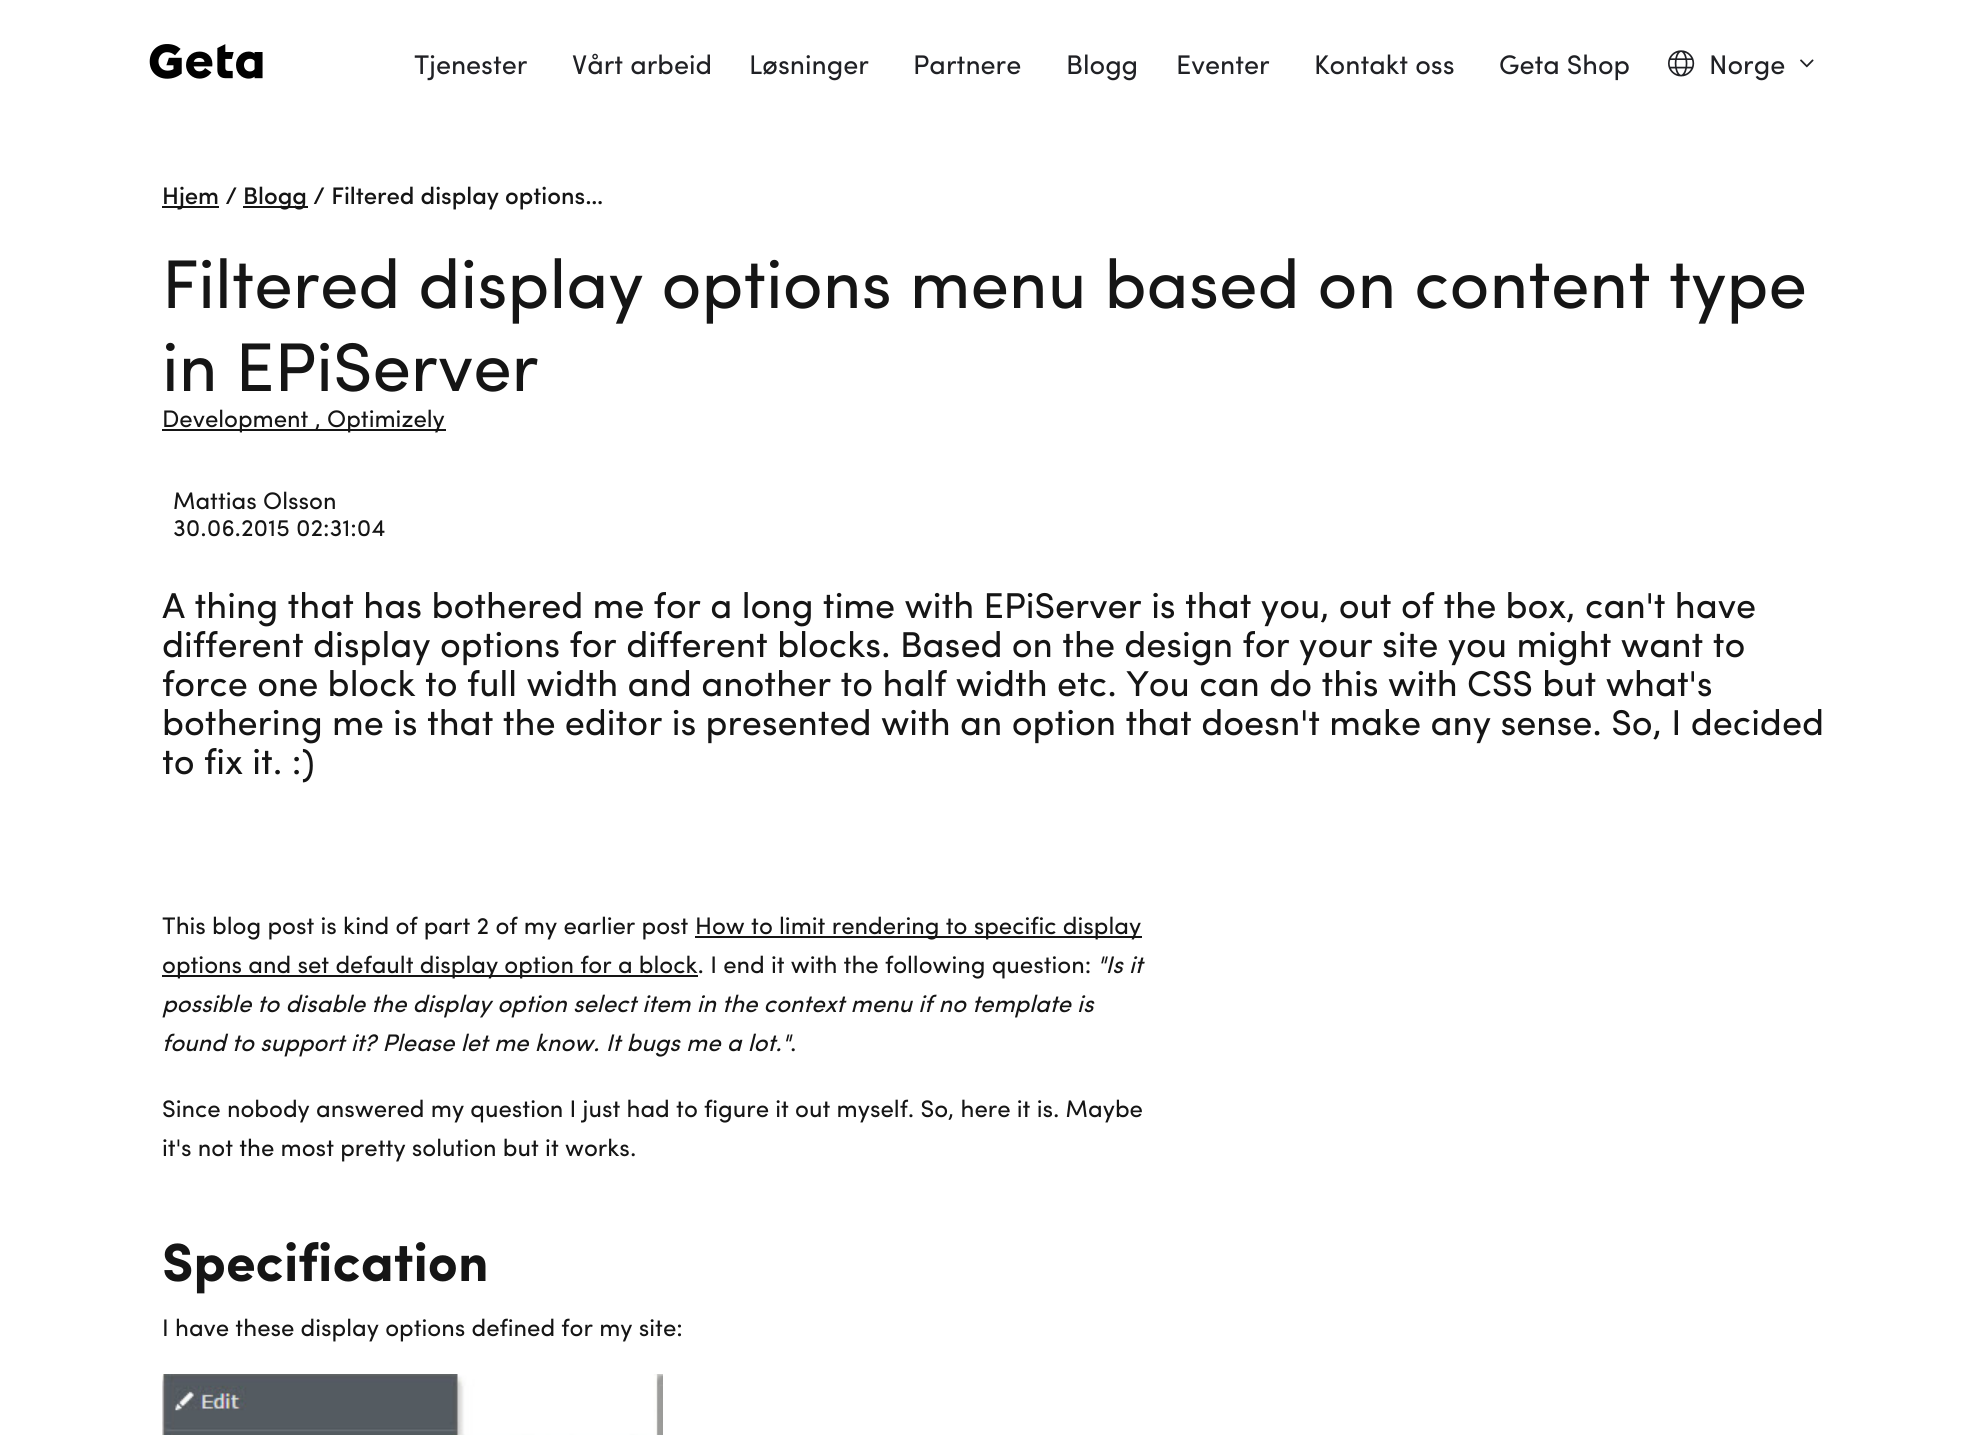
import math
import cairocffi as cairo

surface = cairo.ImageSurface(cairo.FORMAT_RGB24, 1988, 1435)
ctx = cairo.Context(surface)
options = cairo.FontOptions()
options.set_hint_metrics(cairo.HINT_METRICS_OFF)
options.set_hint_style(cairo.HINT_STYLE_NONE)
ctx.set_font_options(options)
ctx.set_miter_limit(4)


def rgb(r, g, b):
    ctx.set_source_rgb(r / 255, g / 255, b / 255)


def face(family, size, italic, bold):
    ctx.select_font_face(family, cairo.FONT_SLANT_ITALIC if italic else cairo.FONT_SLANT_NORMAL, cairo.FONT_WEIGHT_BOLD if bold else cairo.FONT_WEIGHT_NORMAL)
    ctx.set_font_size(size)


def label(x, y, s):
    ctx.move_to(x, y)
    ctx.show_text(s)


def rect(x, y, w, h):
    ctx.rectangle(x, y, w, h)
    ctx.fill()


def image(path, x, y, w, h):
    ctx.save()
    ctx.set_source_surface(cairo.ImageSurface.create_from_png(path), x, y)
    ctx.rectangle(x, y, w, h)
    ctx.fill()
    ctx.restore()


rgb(255, 255, 255)
ctx.paint()
image('image0.png', 149, 44, 114, 35)
face('Sofia', 27, 0, 0)
rgb(32, 33, 37)
label(414, 74, 'Tjenester')
label(572, 74, 'Vårt arbeid')
label(749, 74, 'Løsninger')
label(913, 74, 'Partnere')
label(1066, 74, 'Blogg')
label(1176, 74, 'Eventer')
label(1314, 74, 'Kontakt oss')
label(1499, 74, 'Geta Shop')
image('image1.png', 1668, 50, 27, 27)
label(1709, 74, 'Norge')
image('image2.png', 1800, 59, 14, 9)
rgb(21, 21, 21)
rect(162, 206, 57, 2)
face('Sofia Medium', 24, 0, 0)
label(162, 204, 'Hjem /')
rect(243, 206, 65, 2)
label(243, 204, 'Blogg / Filtered display options…')
face('Sofia', 69, 0, 0)
label(162, 308, 'Filtered display options menu based on content type')
label(162, 391, 'in EPiServer')
rect(162, 429, 284, 2)
face('Sofia', 24, 0, 0)
label(162, 427, 'Development , Optimizely')
label(173, 509, 'Mattias Olsson')
label(173, 536, '30.06.2015 02:31:04')
face('Sofia', 36, 0, 0)
label(162, 618, 'A thing that has bothered me for a long time with EPiServer is that you, out of the box, can\'t have')
label(162, 657, 'different display options for different blocks. Based on the design for your site you might want to')
label(162, 696, 'force one block to full width and another to half width etc. You can do this with CSS but what\'s')
label(162, 735, 'bothering me is that the editor is presented with an option that doesn\'t make any sense. So, I decided')
label(162, 774, 'to fix it. :)')
face('Sofia', 24, 0, 0)
label(162, 934, 'This blog post is kind of part 2 of my earlier post')
rect(695, 936, 447, 2)
label(695, 934, 'How to limit rendering to specific display')
rect(162, 975, 536, 2)
label(162, 973, 'options and set default display option for a block. I end it with the following question:')
face('Sofia', 24, 1, 0)
label(1097, 973, '"Is it')
label(162, 1012, 'possible to disable the display option select item in the context menu if no template is')
label(162, 1051, 'found to support it? Please let me know. It bugs me a lot."')
face('Sofia', 24, 0, 0)
label(790, 1051, '.')
label(162, 1117, 'Since nobody answered my question I just had to figure it out myself. So, here it is. Maybe')
label(162, 1156, 'it\'s not the most pretty solution but it works.')
face('Sofia', 54, 0, 1)
label(162, 1281, 'Specification')
face('Sofia', 24, 0, 0)
label(162, 1336, 'I have these display options defined for my site:')
image('image3.png', 162, 1374, 501, 61)
surface.write_to_png('render.png')
